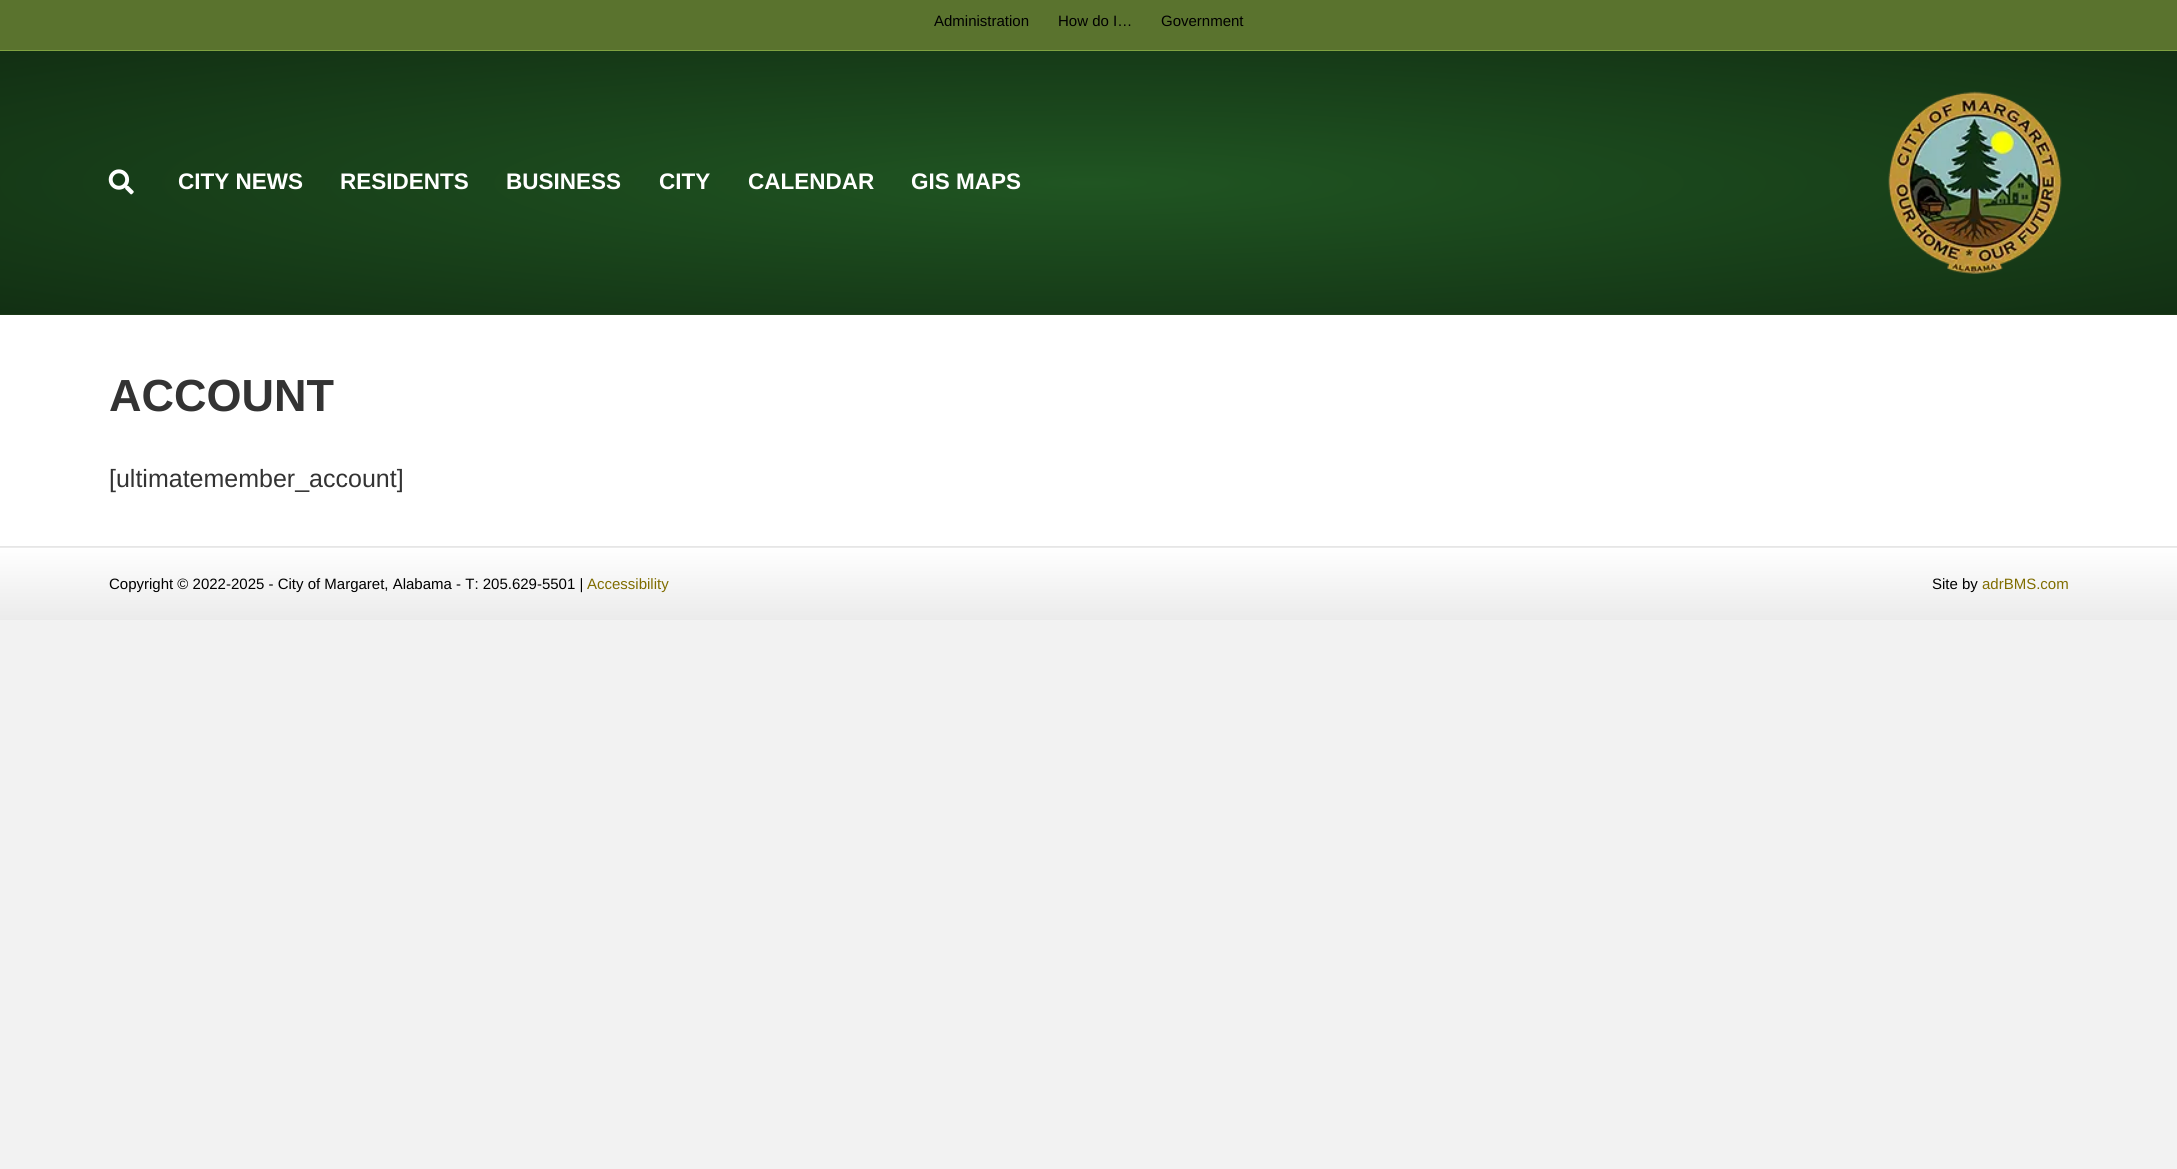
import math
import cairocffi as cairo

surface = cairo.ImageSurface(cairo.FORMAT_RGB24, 2177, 1169)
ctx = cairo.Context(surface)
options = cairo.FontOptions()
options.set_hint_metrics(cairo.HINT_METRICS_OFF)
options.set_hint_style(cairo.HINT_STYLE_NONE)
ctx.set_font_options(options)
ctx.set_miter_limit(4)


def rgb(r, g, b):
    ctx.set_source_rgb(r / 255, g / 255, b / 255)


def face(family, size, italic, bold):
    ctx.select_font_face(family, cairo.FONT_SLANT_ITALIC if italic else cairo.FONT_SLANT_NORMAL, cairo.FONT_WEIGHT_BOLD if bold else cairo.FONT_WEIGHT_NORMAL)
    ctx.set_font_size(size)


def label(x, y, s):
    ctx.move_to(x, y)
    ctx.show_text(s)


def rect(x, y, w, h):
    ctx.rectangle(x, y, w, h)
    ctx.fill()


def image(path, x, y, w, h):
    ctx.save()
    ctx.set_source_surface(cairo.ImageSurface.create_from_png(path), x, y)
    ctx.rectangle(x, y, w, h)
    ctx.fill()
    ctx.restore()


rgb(242, 242, 242)
ctx.paint()
rgb(90, 115, 46)
rect(0, 0, 2177, 50)
rgb(127, 162, 65)
rect(0, 50, 2177, 1)
face('Liberation Sans', 15, 0, 0)
rgb(0, 0, 0)
label(934, 26, 'Administration')
label(1058, 26, 'How do I…')
label(1161, 26, 'Government')
gradient = cairo.RadialGradient(0, 0, 0, 0, 0, 1)
gradient.set_matrix(cairo.Matrix(1 / 1540, 0, 0, 1 / 186, -1 * 1089 / 1540, -1 * 183 / 186))
gradient.add_color_stop_rgba(0, 0.125, 0.333, 0.133, 1)
gradient.add_color_stop_rgba(1, 0.071, 0.188, 0.075, 1)
ctx.set_source(gradient)
rect(0, 51, 2177, 263)
gradient = cairo.RadialGradient(0, 0, 0, 0, 0, 1)
gradient.set_matrix(cairo.Matrix(1 / 1540, 0, 0, 1 / 186, -1 * 1089 / 1540, -1 * 183 / 186))
gradient.add_color_stop_rgba(0, 0.157, 0.349, 0.141, 1)
gradient.add_color_stop_rgba(1, 0.106, 0.224, 0.09, 1)
ctx.set_source(gradient)
rect(0, 314, 2177, 1)
image('image0.png', 108, 169, 26, 26)
face('Liberation Sans', 22.5, 0, 1)
rgb(255, 255, 255)
label(178, 189, 'CITY NEWS')
label(340, 189, 'RESIDENTS')
label(506, 189, 'BUSINESS')
label(659, 189, 'CITY')
label(748, 189, 'CALENDAR')
label(911, 189, 'GIS MAPS')
image('image1.png', 1888, 91, 174, 183)
rect(0, 315, 2177, 231)
face('Liberation Sans', 45, 0, 1)
rgb(51, 51, 51)
label(109, 411, 'ACCOUNT')
face('Liberation Sans', 25, 0, 0)
label(109, 487, '[ultimatemember_account]')
gradient = cairo.LinearGradient(1089, 475, 1089, 548)
gradient.add_color_stop_rgba(0, 1, 1, 1, 1)
gradient.add_color_stop_rgba(1, 0.922, 0.922, 0.922, 1)
ctx.set_source(gradient)
rect(0, 547, 2177, 1)
gradient = cairo.LinearGradient(1089, 547, 1089, 620)
gradient.add_color_stop_rgba(0, 1, 1, 1, 1)
gradient.add_color_stop_rgba(1, 0.922, 0.922, 0.922, 1)
ctx.set_source(gradient)
rect(0, 548, 2177, 72)
rgb(230, 230, 230)
rect(0, 546, 2177, 1)
face('Liberation Sans', 15, 0, 0)
rgb(0, 0, 0)
label(109, 589, 'Copyright © 2022-2025 - City of Margaret, Alabama - T: 205.629-5501 |')
rgb(128, 109, 0)
label(587, 589, 'Accessibility')
rgb(0, 0, 0)
label(1932, 589, 'Site by')
rgb(128, 109, 0)
label(1982, 589, 'adrBMS.com')
surface.write_to_png('render.png')
